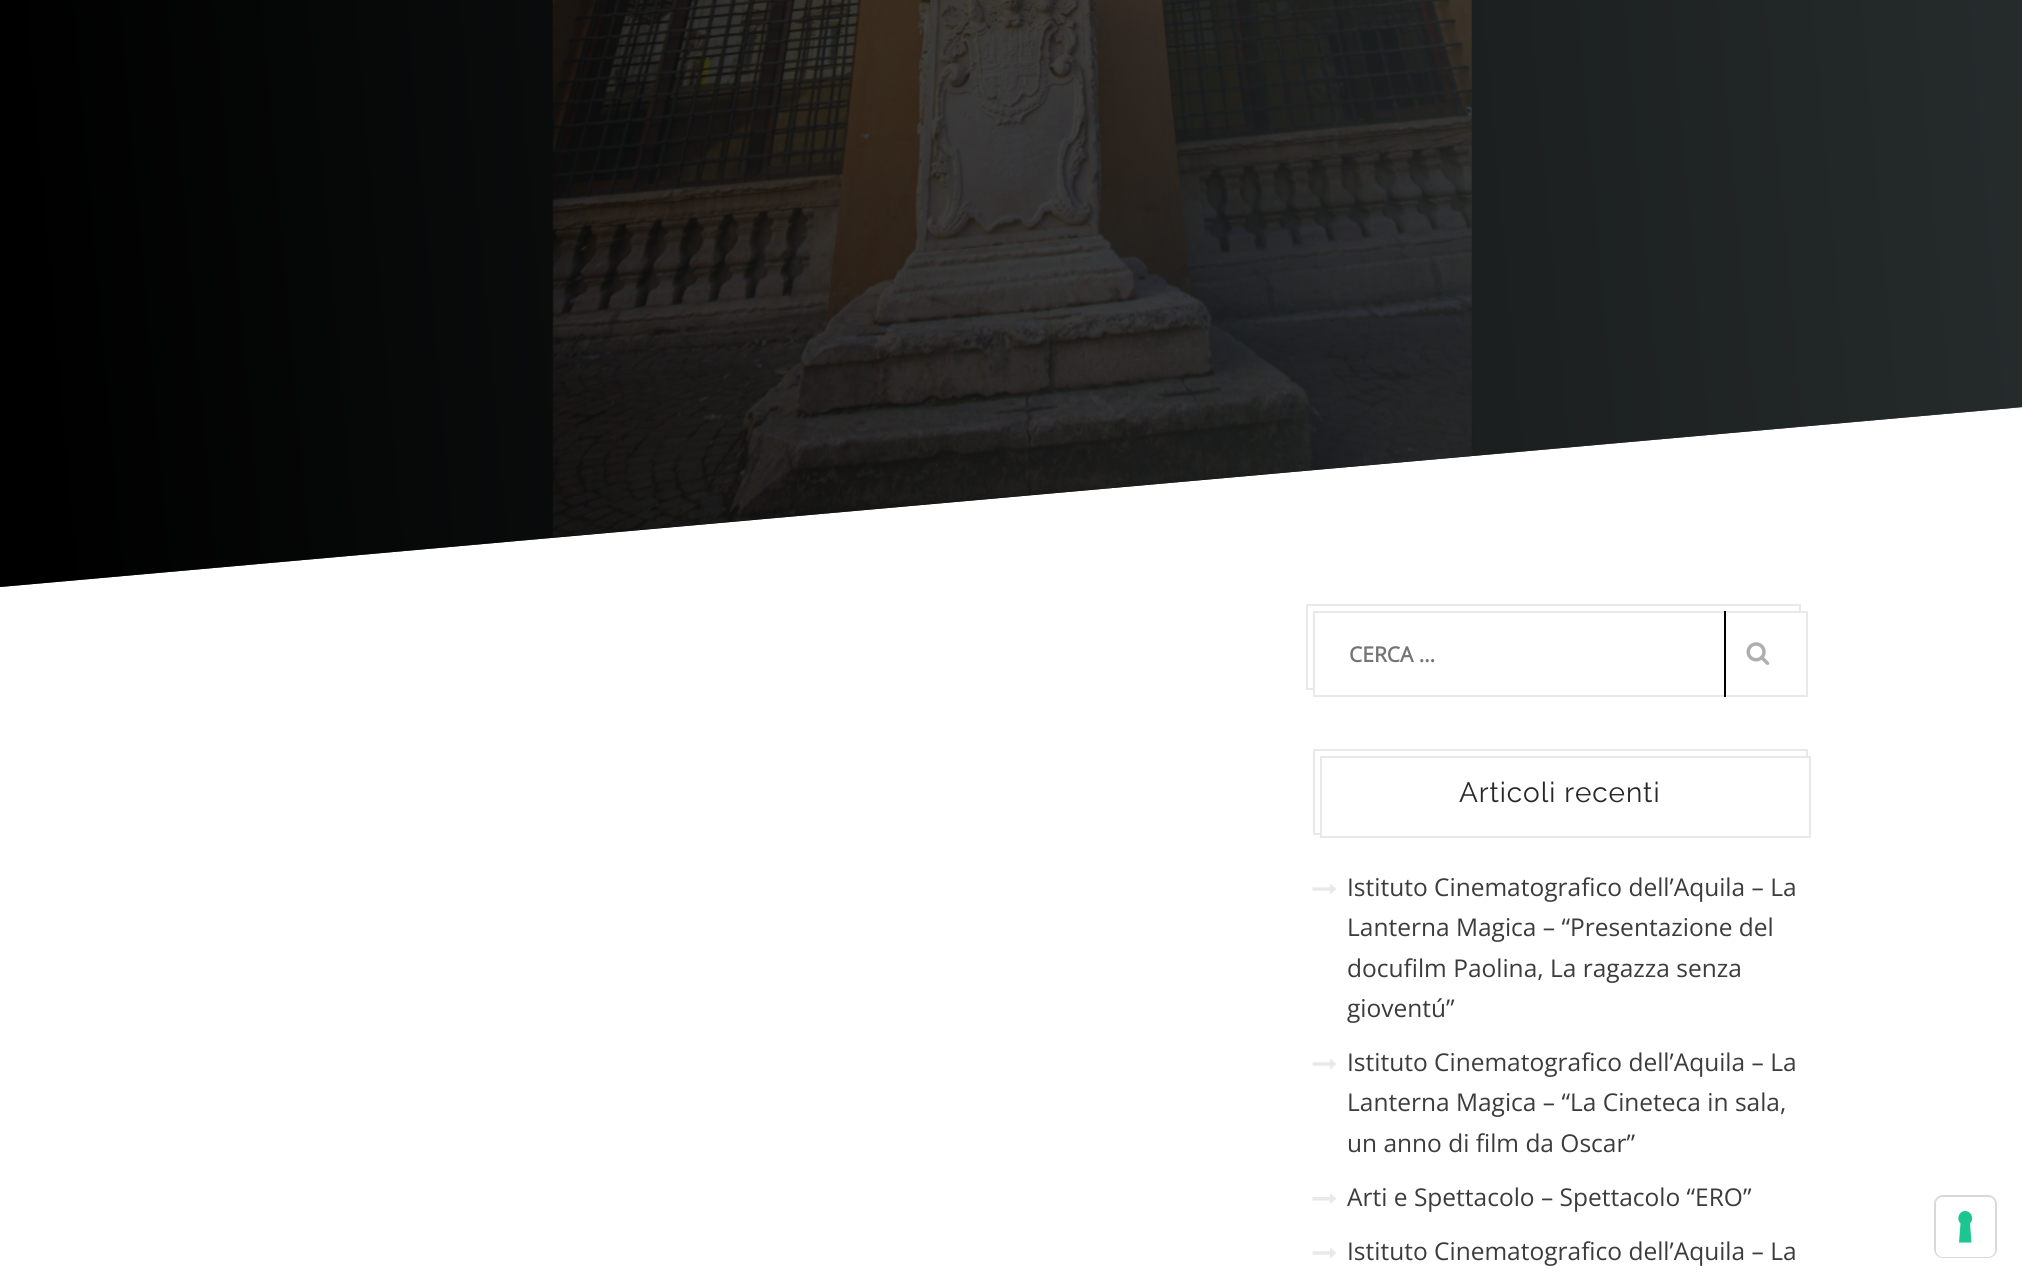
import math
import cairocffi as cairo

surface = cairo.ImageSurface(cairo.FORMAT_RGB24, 2022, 1283)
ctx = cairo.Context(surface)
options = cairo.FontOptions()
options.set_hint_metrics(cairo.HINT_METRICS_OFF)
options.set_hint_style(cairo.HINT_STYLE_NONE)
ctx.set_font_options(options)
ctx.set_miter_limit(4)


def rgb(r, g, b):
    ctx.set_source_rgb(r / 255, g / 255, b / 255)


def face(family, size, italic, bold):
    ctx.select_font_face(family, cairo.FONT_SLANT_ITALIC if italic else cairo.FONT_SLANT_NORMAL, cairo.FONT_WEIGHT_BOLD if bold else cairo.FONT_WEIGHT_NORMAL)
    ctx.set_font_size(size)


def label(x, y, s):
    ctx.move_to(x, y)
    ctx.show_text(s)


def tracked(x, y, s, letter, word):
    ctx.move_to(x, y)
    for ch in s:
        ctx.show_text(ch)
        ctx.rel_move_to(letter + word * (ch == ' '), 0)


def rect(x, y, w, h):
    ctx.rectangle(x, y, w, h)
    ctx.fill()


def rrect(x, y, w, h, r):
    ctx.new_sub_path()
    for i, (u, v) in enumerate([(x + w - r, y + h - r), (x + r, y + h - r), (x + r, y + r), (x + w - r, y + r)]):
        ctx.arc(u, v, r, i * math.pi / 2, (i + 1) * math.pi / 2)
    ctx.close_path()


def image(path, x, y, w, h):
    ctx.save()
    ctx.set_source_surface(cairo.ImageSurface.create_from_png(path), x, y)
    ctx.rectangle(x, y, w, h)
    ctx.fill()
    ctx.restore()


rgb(255, 255, 255)
ctx.paint()
rgb(248, 248, 248)
ctx.new_path()
ctx.move_to(0, -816)
ctx.line_to(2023, -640)
ctx.line_to(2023, 410)
ctx.line_to(0, 234)
ctx.close_path()
ctx.fill()
rgb(0, 0, 0)
ctx.new_path()
ctx.move_to(0, -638)
ctx.line_to(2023, -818)
ctx.line_to(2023, 407)
ctx.line_to(0, 587)
ctx.close_path()
ctx.fill()
image('image0.png', 552, 0, 920, 537)
gradient = cairo.LinearGradient(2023, -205, 0, -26)
gradient.add_color_stop_rgba(0, 0.212, 0.243, 0.247, 0.7)
gradient.add_color_stop_rgba(1, 0, 0, 0, 0.7)
ctx.set_source(gradient)
ctx.new_path()
ctx.move_to(0, -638)
ctx.line_to(0, 587)
ctx.line_to(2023, 407)
ctx.line_to(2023, -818)
ctx.line_to(1012, -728)
ctx.close_path()
ctx.fill()
ctx.rectangle(1307, 605, 493, 84)
rgb(233, 233, 233)
ctx.stroke()
rgb(255, 255, 255)
rect(1315, 613, 486, 77)
ctx.rectangle(1314, 612, 493, 84)
rgb(233, 233, 233)
ctx.stroke()
face('Open Sans', 21, 0, 1)
rgb(117, 117, 117)
label(1349, 662, 'CERCA …')
rgb(0, 0, 0)
rect(1724, 611, 2, 86)
image('image1.png', 1746, 642, 24, 23)
ctx.rectangle(1314, 750, 493, 84)
rgb(233, 233, 233)
ctx.stroke()
rgb(255, 255, 255)
rect(1322, 758, 486, 77)
ctx.rectangle(1321, 757, 489, 80)
rgb(233, 233, 233)
ctx.stroke()
face('Raleway', 28, 0, 0)
rgb(40, 40, 40)
tracked(1459, 802, 'Articoli recenti', 0.9, 0)
image('image2.png', 1312, 884, 24, 10)
face('Open Sans', 24.5, 0, 0)
rgb(60, 60, 60)
label(1347, 896, 'Istituto Cinematografico dell’Aquila – La')
label(1347, 936, 'Lanterna Magica – “Presentazione del')
label(1347, 977, 'docufilm Paolina, La ragazza senza')
label(1347, 1017, 'gioventú”')
image('image2.png', 1312, 1059, 24, 10)
label(1347, 1071, 'Istituto Cinematografico dell’Aquila – La')
label(1347, 1111, 'Lanterna Magica – “La Cineteca in sala,')
label(1347, 1152, 'un anno di film da Oscar”')
image('image3.png', 1312, 1193, 24, 11)
label(1347, 1206, 'Arti e Spettacolo – Spettacolo “ERO”')
image('image2.png', 1312, 1248, 24, 10)
label(1347, 1260, 'Istituto Cinematografico dell’Aquila – La')
rrect(1935, 1196, 61, 61, 8)
rgb(217, 217, 217)
ctx.stroke()
rgb(255, 255, 255)
rrect(1936, 1197, 59, 60, 7)
ctx.fill()
rgb(28, 198, 145)
ctx.set_fill_rule(cairo.FILL_RULE_EVEN_ODD)
ctx.new_path()
ctx.move_to(1965, 1211)
ctx.curve_to(1971.5, 1211, 1974.5, 1219, 1970, 1223.5)
ctx.line_to(1971.5, 1242.5)
ctx.line_to(1959, 1242.5)
ctx.line_to(1960.5, 1223.5)
ctx.curve_to(1956, 1219, 1959, 1211, 1965, 1211)
ctx.close_path()
ctx.fill()
surface.write_to_png('render.png')
